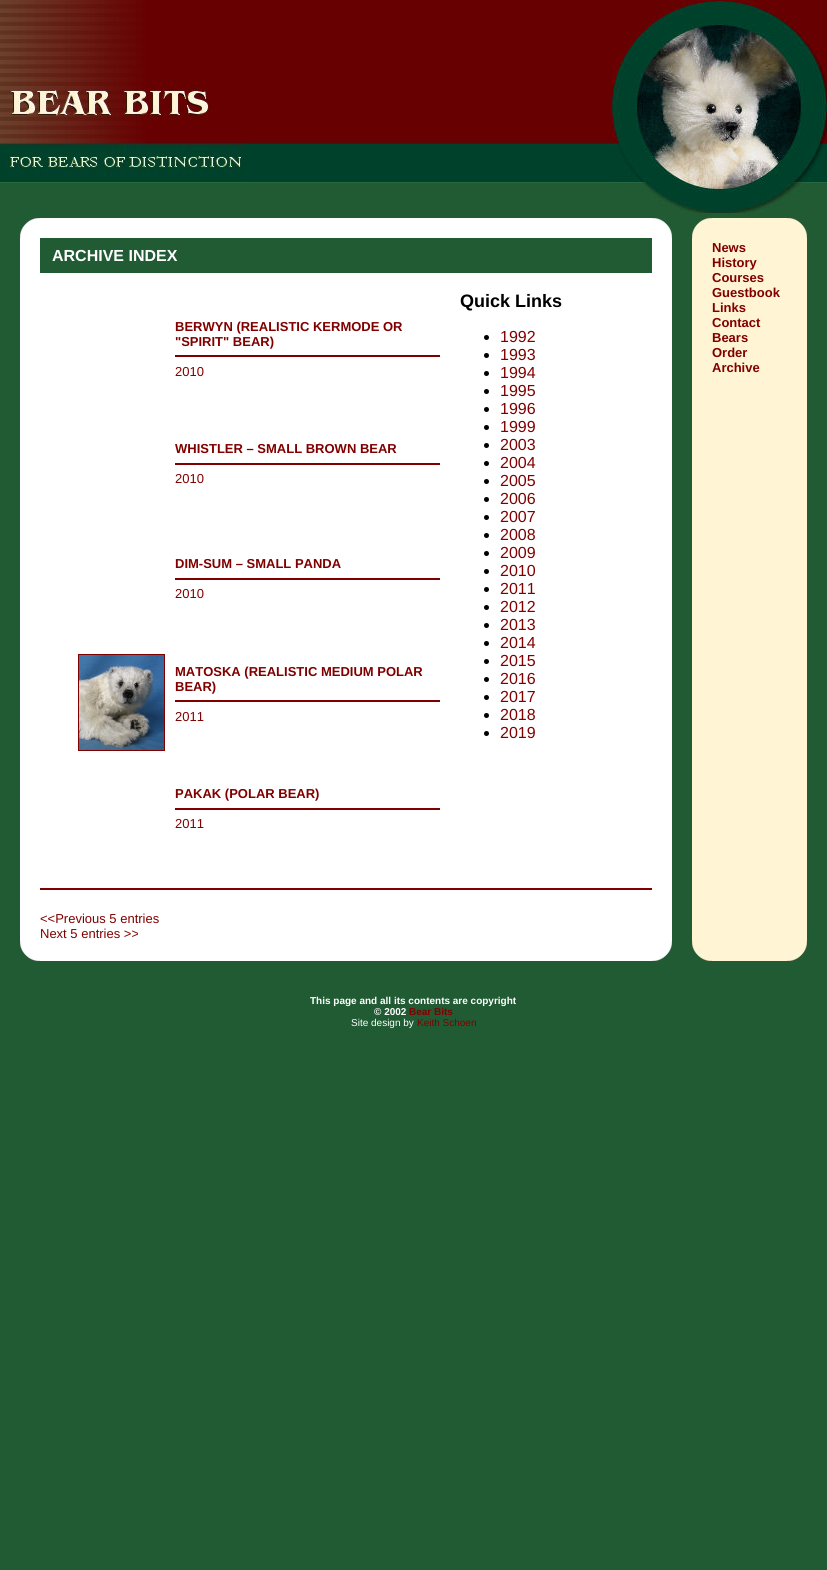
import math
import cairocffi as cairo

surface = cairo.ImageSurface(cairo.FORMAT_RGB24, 827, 1570)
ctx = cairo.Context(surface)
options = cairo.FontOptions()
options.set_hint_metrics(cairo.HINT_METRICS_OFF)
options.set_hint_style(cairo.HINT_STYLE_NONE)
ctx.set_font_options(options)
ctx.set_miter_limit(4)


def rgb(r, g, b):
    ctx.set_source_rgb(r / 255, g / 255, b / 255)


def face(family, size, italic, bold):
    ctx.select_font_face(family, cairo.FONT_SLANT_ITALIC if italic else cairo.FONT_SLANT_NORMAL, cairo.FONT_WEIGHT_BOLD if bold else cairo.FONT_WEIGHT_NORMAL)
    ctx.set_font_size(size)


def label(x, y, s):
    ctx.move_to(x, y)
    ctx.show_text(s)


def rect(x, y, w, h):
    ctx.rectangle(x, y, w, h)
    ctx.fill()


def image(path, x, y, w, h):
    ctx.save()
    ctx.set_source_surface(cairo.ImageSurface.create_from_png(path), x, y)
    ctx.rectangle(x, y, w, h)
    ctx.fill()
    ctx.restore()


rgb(33, 91, 51)
ctx.paint()
rgb(255, 255, 255)
rect(20, 218, 652, 743)
image('image0.png', 0, 0, 612, 213)
image('image1.png', 0, 0, 245, 182)
image('image2.png', 612, 0, 215, 213)
image('image3.png', 20, 218, 20, 20)
rgb(33, 91, 51)
rect(40, 238, 612, 35)
face('Liberation Sans', 16, 0, 1)
rgb(255, 255, 255)
label(52, 261, 'ARCHIVE INDEX')
face('Liberation Sans', 13, 0, 1)
rgb(128, 0, 0)
label(175, 331, 'BERWYN (REALISTIC KERMODE OR')
label(175, 346, '"SPIRIT" BEAR)')
rect(175, 355, 265, 2)
face('Liberation Sans', 13, 0, 0)
label(175, 376, '2010')
face('Liberation Sans', 13, 0, 1)
label(175, 453, 'WHISTLER – SMALL BROWN BEAR')
rect(175, 463, 265, 2)
face('Liberation Sans', 13, 0, 0)
label(175, 483, '2010')
face('Liberation Sans', 13, 0, 1)
label(175, 568, 'DIM-SUM – SMALL PANDA')
rect(175, 578, 265, 2)
face('Liberation Sans', 13, 0, 0)
label(175, 598, '2010')
ctx.rectangle(78.5, 654.5, 86, 96)
ctx.set_line_width(1)
ctx.stroke()
image('image4.png', 79, 655, 85, 95)
face('Liberation Sans', 13, 0, 1)
label(175, 676, 'MATOSKA (REALISTIC MEDIUM POLAR')
label(175, 691, 'BEAR)')
rect(175, 700, 265, 2)
face('Liberation Sans', 13, 0, 0)
label(175, 721, '2011')
face('Liberation Sans', 13, 0, 1)
label(175, 798, 'PAKAK (POLAR BEAR)')
rect(175, 808, 265, 2)
face('Liberation Sans', 13, 0, 0)
label(175, 828, '2011')
face('Liberation Sans', 18, 0, 1)
rgb(0, 0, 0)
label(460, 307, 'Quick Links')
ctx.new_path()
ctx.arc(486.5, 337.5, 2.5, 0, 2 * math.pi)
ctx.fill()
face('Liberation Sans', 16, 0, 0)
rgb(128, 0, 0)
label(500, 342, '1992')
rgb(0, 0, 0)
ctx.new_path()
ctx.arc(486.5, 355.5, 2.5, 0, 2 * math.pi)
ctx.fill()
rgb(128, 0, 0)
label(500, 360, '1993')
rgb(0, 0, 0)
ctx.new_path()
ctx.arc(486.5, 373.5, 2.5, 0, 2 * math.pi)
ctx.fill()
rgb(128, 0, 0)
label(500, 378, '1994')
rgb(0, 0, 0)
ctx.new_path()
ctx.arc(486.5, 391.5, 2.5, 0, 2 * math.pi)
ctx.fill()
rgb(128, 0, 0)
label(500, 396, '1995')
rgb(0, 0, 0)
ctx.new_path()
ctx.arc(486.5, 409.5, 2.5, 0, 2 * math.pi)
ctx.fill()
rgb(128, 0, 0)
label(500, 414, '1996')
rgb(0, 0, 0)
ctx.new_path()
ctx.arc(486.5, 427.5, 2.5, 0, 2 * math.pi)
ctx.fill()
rgb(128, 0, 0)
label(500, 432, '1999')
rgb(0, 0, 0)
ctx.new_path()
ctx.arc(486.5, 445.5, 2.5, 0, 2 * math.pi)
ctx.fill()
rgb(128, 0, 0)
label(500, 450, '2003')
rgb(0, 0, 0)
ctx.new_path()
ctx.arc(486.5, 463.5, 2.5, 0, 2 * math.pi)
ctx.fill()
rgb(128, 0, 0)
label(500, 468, '2004')
rgb(0, 0, 0)
ctx.new_path()
ctx.arc(486.5, 481.5, 2.5, 0, 2 * math.pi)
ctx.fill()
rgb(128, 0, 0)
label(500, 486, '2005')
rgb(0, 0, 0)
ctx.new_path()
ctx.arc(486.5, 499.5, 2.5, 0, 2 * math.pi)
ctx.fill()
rgb(128, 0, 0)
label(500, 504, '2006')
rgb(0, 0, 0)
ctx.new_path()
ctx.arc(486.5, 517.5, 2.5, 0, 2 * math.pi)
ctx.fill()
rgb(128, 0, 0)
label(500, 522, '2007')
rgb(0, 0, 0)
ctx.new_path()
ctx.arc(486.5, 535.5, 2.5, 0, 2 * math.pi)
ctx.fill()
rgb(128, 0, 0)
label(500, 540, '2008')
rgb(0, 0, 0)
ctx.new_path()
ctx.arc(486.5, 553.5, 2.5, 0, 2 * math.pi)
ctx.fill()
rgb(128, 0, 0)
label(500, 558, '2009')
rgb(0, 0, 0)
ctx.new_path()
ctx.arc(486.5, 571.5, 2.5, 0, 2 * math.pi)
ctx.fill()
rgb(128, 0, 0)
label(500, 576, '2010')
rgb(0, 0, 0)
ctx.new_path()
ctx.arc(486.5, 589.5, 2.5, 0, 2 * math.pi)
ctx.fill()
rgb(128, 0, 0)
label(500, 594, '2011')
rgb(0, 0, 0)
ctx.new_path()
ctx.arc(486.5, 607.5, 2.5, 0, 2 * math.pi)
ctx.fill()
rgb(128, 0, 0)
label(500, 612, '2012')
rgb(0, 0, 0)
ctx.new_path()
ctx.arc(486.5, 625.5, 2.5, 0, 2 * math.pi)
ctx.fill()
rgb(128, 0, 0)
label(500, 630, '2013')
rgb(0, 0, 0)
ctx.new_path()
ctx.arc(486.5, 643.5, 2.5, 0, 2 * math.pi)
ctx.fill()
rgb(128, 0, 0)
label(500, 648, '2014')
rgb(0, 0, 0)
ctx.new_path()
ctx.arc(486.5, 661.5, 2.5, 0, 2 * math.pi)
ctx.fill()
rgb(128, 0, 0)
label(500, 666, '2015')
rgb(0, 0, 0)
ctx.new_path()
ctx.arc(486.5, 679.5, 2.5, 0, 2 * math.pi)
ctx.fill()
rgb(128, 0, 0)
label(500, 684, '2016')
rgb(0, 0, 0)
ctx.new_path()
ctx.arc(486.5, 697.5, 2.5, 0, 2 * math.pi)
ctx.fill()
rgb(128, 0, 0)
label(500, 702, '2017')
rgb(0, 0, 0)
ctx.new_path()
ctx.arc(486.5, 715.5, 2.5, 0, 2 * math.pi)
ctx.fill()
rgb(128, 0, 0)
label(500, 720, '2018')
rgb(0, 0, 0)
ctx.new_path()
ctx.arc(486.5, 733.5, 2.5, 0, 2 * math.pi)
ctx.fill()
rgb(128, 0, 0)
label(500, 738, '2019')
rect(40, 888, 612, 2)
face('Liberation Sans', 13, 0, 0)
label(40, 923, '<<Previous 5 entries')
label(40, 938, 'Next 5 entries >>')
image('image5.png', 652, 218, 20, 20)
rgb(255, 244, 212)
rect(692, 238, 20, 703)
image('image6.png', 692, 218, 20, 20)
rect(712, 218, 75, 743)
face('Liberation Sans', 13, 0, 1)
rgb(128, 0, 0)
label(712, 252, 'News')
label(712, 267, 'History')
label(712, 282, 'Courses')
label(712, 297, 'Guestbook')
label(712, 312, 'Links')
label(712, 327, 'Contact')
label(712, 342, 'Bears')
label(712, 357, 'Order')
label(712, 372, 'Archive')
rgb(255, 244, 212)
rect(787, 238, 20, 703)
image('image7.png', 787, 218, 20, 20)
image('image8.png', 20, 941, 20, 20)
image('image9.png', 652, 941, 20, 20)
image('image10.png', 692, 941, 20, 20)
image('image11.png', 787, 941, 20, 20)
face('Liberation Sans', 10, 0, 1)
rgb(255, 255, 255)
label(310, 1004, 'This page and all its contents are copyright')
label(374, 1015, '© 2002')
rgb(128, 0, 0)
label(409, 1015, 'Bear Bits')
face('Liberation Sans', 10, 0, 0)
rgb(255, 255, 255)
label(351, 1026, 'Site design by')
rgb(128, 0, 0)
label(417, 1026, 'Keith Schoen')
surface.write_to_png('render.png')
